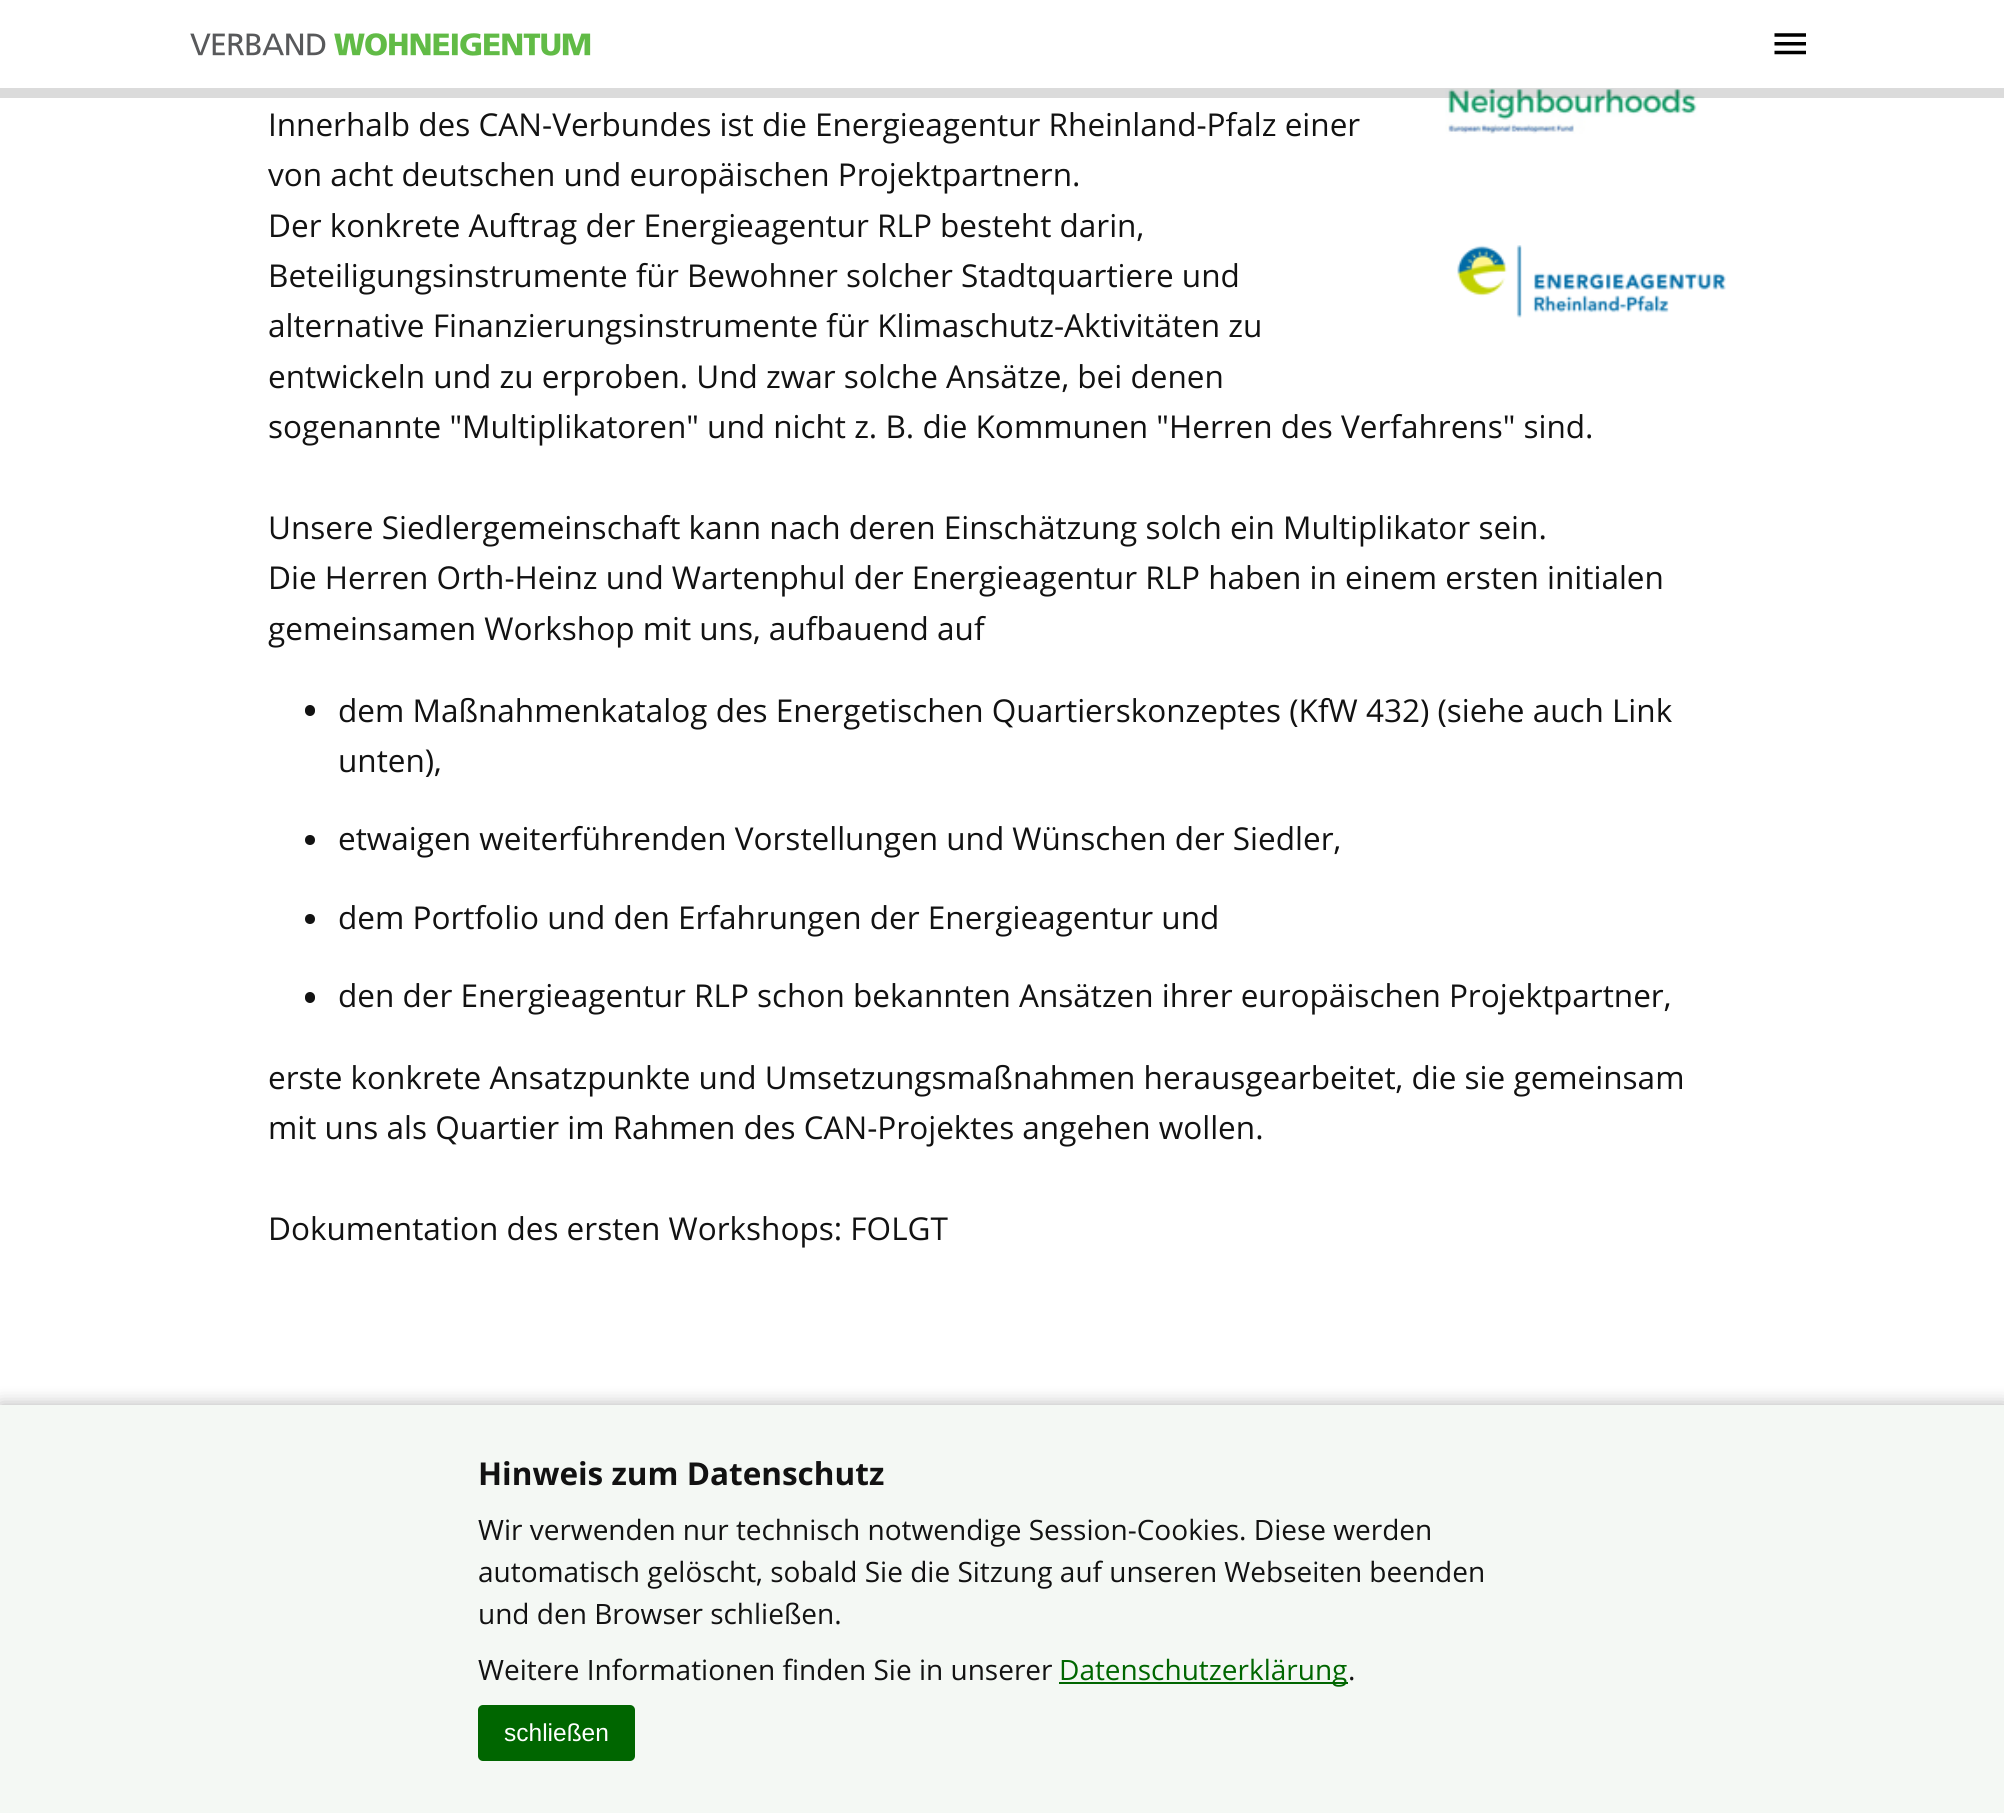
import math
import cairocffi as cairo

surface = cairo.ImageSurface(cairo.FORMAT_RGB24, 2004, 1813)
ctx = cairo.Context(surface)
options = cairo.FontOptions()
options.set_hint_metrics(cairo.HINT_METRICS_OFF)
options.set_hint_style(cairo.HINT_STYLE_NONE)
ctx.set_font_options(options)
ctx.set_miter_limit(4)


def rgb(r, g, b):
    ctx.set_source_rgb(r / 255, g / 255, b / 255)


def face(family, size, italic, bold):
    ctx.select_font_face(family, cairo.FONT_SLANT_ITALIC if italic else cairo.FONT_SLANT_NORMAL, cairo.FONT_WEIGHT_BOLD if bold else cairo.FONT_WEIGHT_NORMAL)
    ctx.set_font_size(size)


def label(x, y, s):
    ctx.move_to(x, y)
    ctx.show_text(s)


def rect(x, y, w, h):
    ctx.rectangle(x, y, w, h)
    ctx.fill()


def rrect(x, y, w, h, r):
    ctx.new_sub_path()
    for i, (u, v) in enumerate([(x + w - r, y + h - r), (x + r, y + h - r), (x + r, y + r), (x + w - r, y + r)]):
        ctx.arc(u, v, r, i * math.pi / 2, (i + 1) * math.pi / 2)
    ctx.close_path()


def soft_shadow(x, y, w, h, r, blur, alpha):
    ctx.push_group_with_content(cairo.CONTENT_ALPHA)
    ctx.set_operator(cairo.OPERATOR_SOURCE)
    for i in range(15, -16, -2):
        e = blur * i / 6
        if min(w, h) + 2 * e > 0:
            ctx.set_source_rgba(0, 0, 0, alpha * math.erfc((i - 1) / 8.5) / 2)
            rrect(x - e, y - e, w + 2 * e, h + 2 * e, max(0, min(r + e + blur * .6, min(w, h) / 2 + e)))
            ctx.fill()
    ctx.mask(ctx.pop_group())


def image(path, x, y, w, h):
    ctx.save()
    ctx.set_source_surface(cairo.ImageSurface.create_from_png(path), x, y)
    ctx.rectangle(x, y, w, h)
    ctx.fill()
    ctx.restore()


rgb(255, 255, 255)
ctx.paint()
image('image2.png', 1445, 88, 292, 46)
ctx.set_source_rgba(0.302, 0.302, 0.302, 0.2)
ctx.new_path()
ctx.move_to(0, 88)
ctx.line_to(0, 98)
ctx.line_to(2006, 98)
ctx.line_to(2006, 11)
ctx.line_to(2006, 88)
ctx.close_path()
ctx.fill()
image('image0.png', 190, 33, 401, 23)
image('image1.png', 1774, 33, 32, 22)
face('Open Sans', 31.5, 0, 0)
rgb(18, 18, 18)
label(268, 136, 'Innerhalb des CAN-Verbundes ist die Energieagentur Rheinland-Pfalz einer')
label(268, 186, 'von acht deutschen und europäischen Projektpartnern.')
label(268, 237, 'Der konkrete Auftrag der Energieagentur RLP besteht darin,')
label(268, 287, 'Beteiligungsinstrumente für Bewohner solcher Stadtquartiere und')
image('image3.png', 1457, 245, 269, 73)
label(268, 337, 'alternative Finanzierungsinstrumente für Klimaschutz-Aktivitäten zu')
label(268, 388, 'entwickeln und zu erproben. Und zwar solche Ansätze, bei denen')
label(268, 438, 'sogenannte "Multiplikatoren" und nicht z. B. die Kommunen "Herren des Verfahrens" sind.')
label(268, 539, 'Unsere Siedlergemeinschaft kann nach deren Einschätzung solch ein Multiplikator sein.')
label(268, 589, 'Die Herren Orth-Heinz und Wartenphul der Energieagentur RLP haben in einem ersten initialen')
label(268, 640, 'gemeinsamen Workshop mit uns, aufbauend auf')
rrect(305, 705, 10, 11, 5)
ctx.fill()
label(338, 722, 'dem Maßnahmenkatalog des Energetischen Quartierskonzeptes (KfW 432) (siehe auch Link')
label(338, 772, 'unten),')
ctx.new_path()
ctx.arc(310, 840, 5, 0, 2 * math.pi)
ctx.fill()
label(338, 850, 'etwaigen weiterführenden Vorstellungen und Wünschen der Siedler,')
ctx.new_path()
ctx.arc(310, 919, 5, 0, 2 * math.pi)
ctx.fill()
label(338, 929, 'dem Portfolio und den Erfahrungen der Energieagentur und')
rrect(305, 992, 10, 11, 5)
ctx.fill()
label(338, 1007, 'den der Energieagentur RLP schon bekannten Ansätzen ihrer europäischen Projektpartner,')
label(268, 1089, 'erste konkrete Ansatzpunkte und Umsetzungsmaßnahmen herausgearbeitet, die sie gemeinsam')
label(268, 1139, 'mit uns als Quartier im Rahmen des CAN-Projektes angehen wollen.')
label(268, 1240, 'Dokumentation des ersten Workshops: FOLGT')
rgb(0, 0, 0)
soft_shadow(0, 1405, 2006, 408, 0, 9, 0.3)
rgb(244, 248, 244)
rect(0, 1405, 2004, 408)
face('Open Sans', 31.5, 0, 1)
rgb(18, 18, 18)
label(478, 1485, 'Hinweis zum Datenschutz')
face('Open Sans', 28, 0, 0)
label(478, 1540, 'Wir verwenden nur technisch notwendige Session-Cookies. Diese werden')
label(478, 1582, 'automatisch gelöscht, sobald Sie die Sitzung auf unseren Webseiten beenden')
label(478, 1624, 'und den Browser schließen.')
label(478, 1680, 'Weitere Informationen finden Sie in unserer')
rgb(0, 102, 0)
rect(1059, 1682, 289, 2)
label(1059, 1680, 'Datenschutzerklärung')
rgb(18, 18, 18)
label(1348, 1680, '.')
rgb(0, 102, 0)
rrect(478, 1705, 157, 56, 5)
ctx.fill()
face('Liberation Sans', 24.5, 0, 0)
rgb(255, 255, 255)
label(504, 1741, 'schließen')
surface.write_to_png('render.png')
